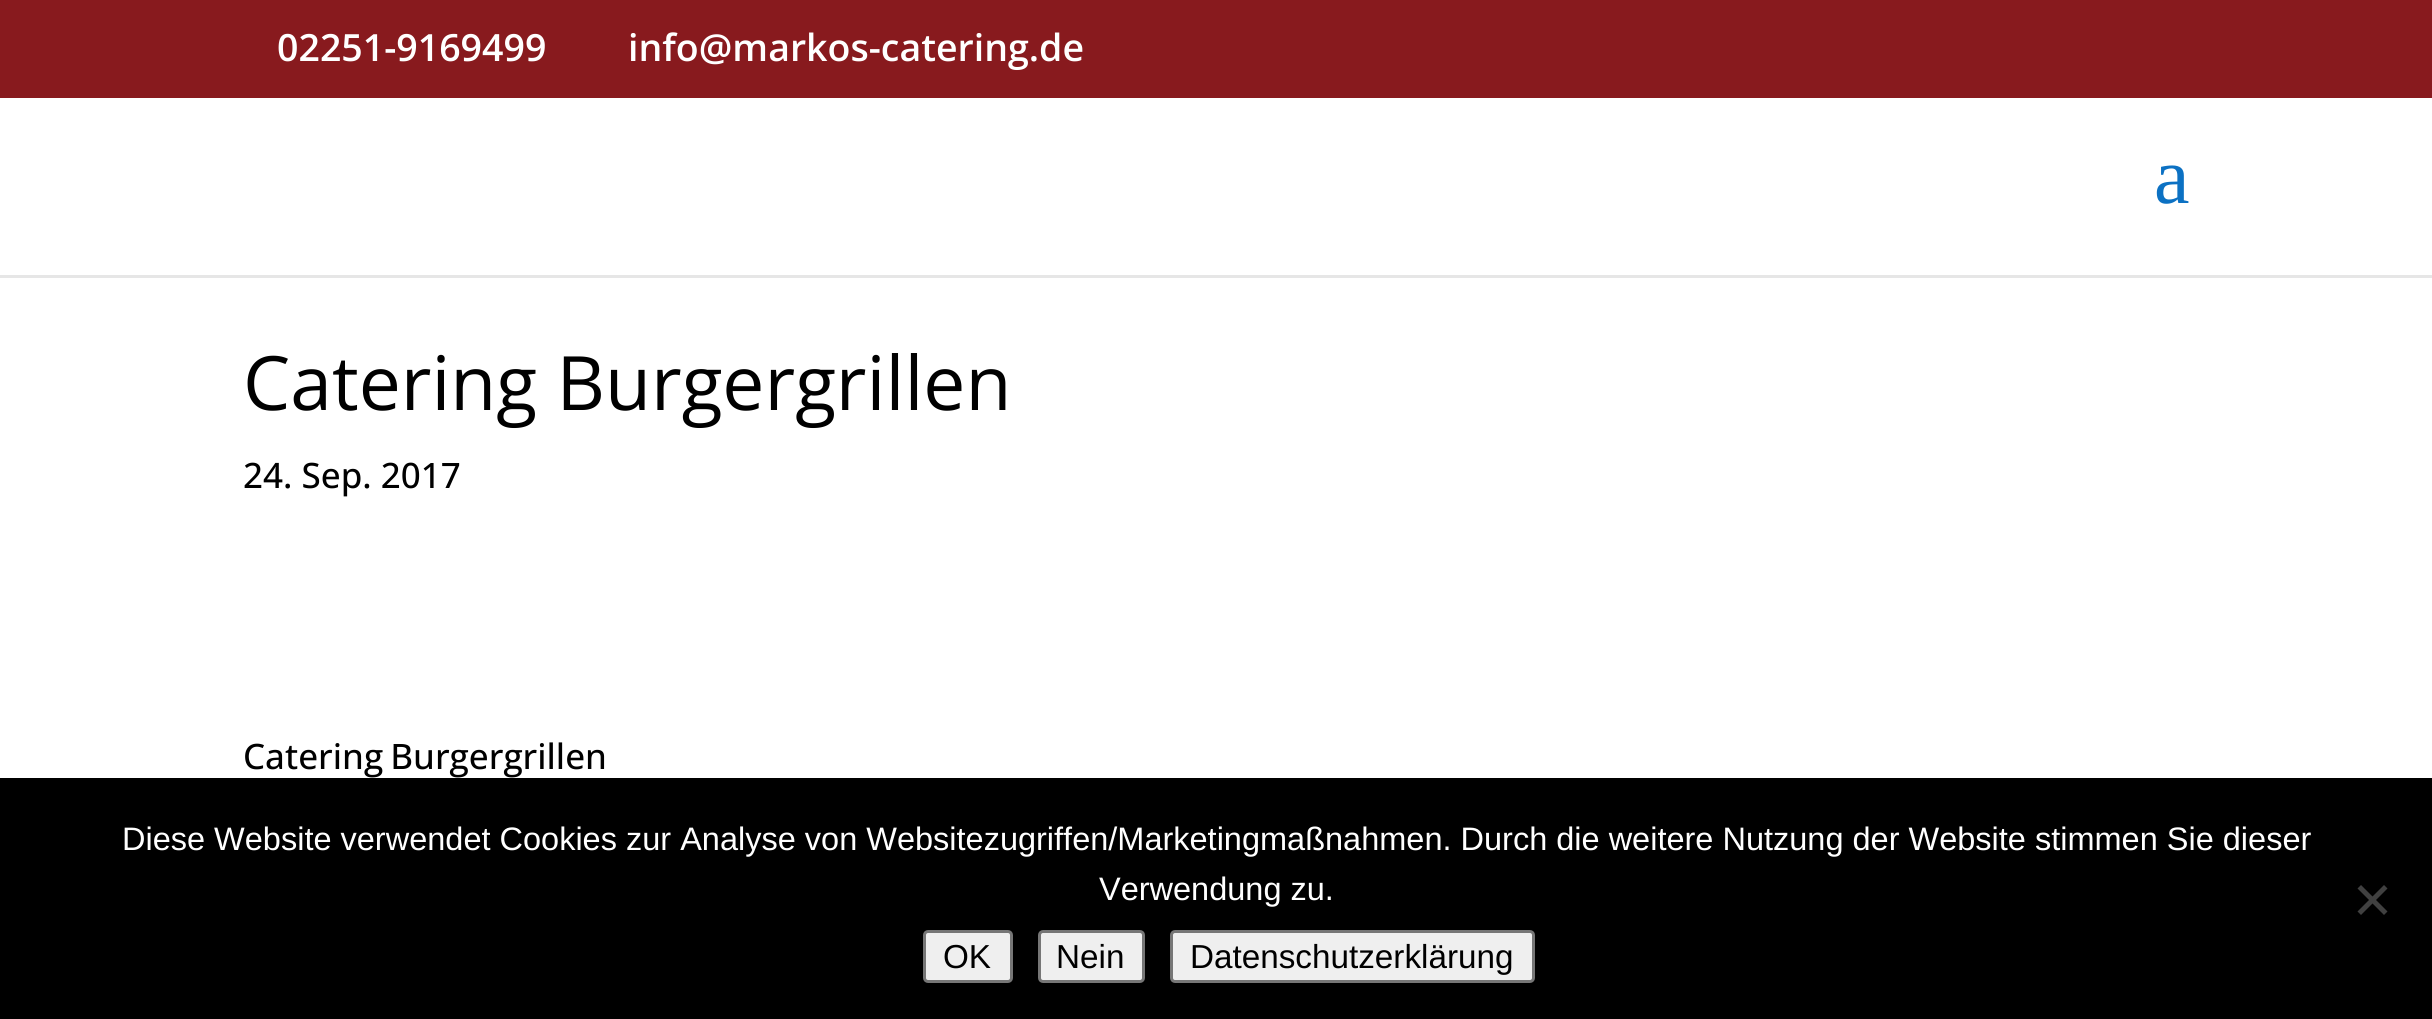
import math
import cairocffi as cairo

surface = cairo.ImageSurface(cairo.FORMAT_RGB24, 2432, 1019)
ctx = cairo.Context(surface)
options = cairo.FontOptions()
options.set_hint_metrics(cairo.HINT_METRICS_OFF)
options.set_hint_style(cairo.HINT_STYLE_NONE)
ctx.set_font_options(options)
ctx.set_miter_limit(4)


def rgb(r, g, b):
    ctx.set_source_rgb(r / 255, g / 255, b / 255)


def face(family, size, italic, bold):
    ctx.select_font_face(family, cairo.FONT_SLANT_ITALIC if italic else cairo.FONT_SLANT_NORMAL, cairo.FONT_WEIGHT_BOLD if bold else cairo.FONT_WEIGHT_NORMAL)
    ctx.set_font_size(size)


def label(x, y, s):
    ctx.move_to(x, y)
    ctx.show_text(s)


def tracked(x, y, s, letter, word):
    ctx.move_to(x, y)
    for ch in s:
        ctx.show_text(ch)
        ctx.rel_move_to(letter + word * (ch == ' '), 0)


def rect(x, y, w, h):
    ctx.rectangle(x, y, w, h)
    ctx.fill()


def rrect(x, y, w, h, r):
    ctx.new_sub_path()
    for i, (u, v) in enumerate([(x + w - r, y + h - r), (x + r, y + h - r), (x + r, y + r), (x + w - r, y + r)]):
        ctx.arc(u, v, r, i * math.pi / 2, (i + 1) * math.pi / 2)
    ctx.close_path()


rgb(255, 255, 255)
ctx.paint()
rgb(136, 26, 30)
rect(0, 0, 2432, 98)
face('Open Sans SemiBold', 37.5, 0, 0)
rgb(255, 255, 255)
label(277, 61, '02251-9169499')
label(628, 61, 'info@markos-catering.de')
rgb(230, 230, 230)
ctx.new_path()
ctx.move_to(0, 275)
ctx.line_to(0, 278)
ctx.line_to(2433, 278)
ctx.line_to(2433, 78)
ctx.line_to(2432, 78)
ctx.line_to(2432, 275)
ctx.close_path()
ctx.fill()
face('Liberation Serif', 80, 0, 0)
rgb(12, 113, 195)
label(2154, 203, 'a')
face('Open Sans', 75, 0, 0)
rgb(0, 0, 0)
label(243, 410, 'Catering Burgergrillen')
face('Open Sans Medium', 35, 0, 0)
label(243, 488, '24. Sep. 2017')
tracked(243, 769, 'Catering Burgergrillen', 0, -2)
rect(0, 778, 2432, 241)
face('Liberation Sans', 32.5, 0, 0)
rgb(255, 255, 255)
label(122, 850, 'Diese Website verwendet Cookies zur Analyse von Websitezugriffen/Marketingmaßnahmen. Durch die weitere Nutzung der Website stimmen Sie dieser')
label(1099, 900, 'Verwendung zu.')
rgb(64, 64, 64)
ctx.new_path()
ctx.move_to(2384, 885)
ctx.line_to(2387.5, 888.5)
ctx.line_to(2361, 915)
ctx.line_to(2357.5, 911.5)
ctx.close_path()
ctx.fill()
ctx.new_path()
ctx.move_to(2357.5, 888.5)
ctx.line_to(2361, 885)
ctx.line_to(2387.5, 911.5)
ctx.line_to(2384, 915)
ctx.close_path()
ctx.fill()
rgb(239, 239, 239)
rrect(924.5, 931.5, 87, 50, 3.5)
ctx.fill_preserve()
rgb(118, 118, 118)
ctx.set_line_width(3)
ctx.stroke()
face('Liberation Sans', 33.25, 0, 0)
rgb(0, 0, 0)
label(943, 968, 'OK')
rgb(239, 239, 239)
rrect(1039.5, 931.5, 104, 50, 3.5)
ctx.fill_preserve()
rgb(118, 118, 118)
ctx.stroke()
rgb(0, 0, 0)
label(1056, 968, 'Nein')
rgb(239, 239, 239)
rrect(1171.5, 931.5, 362, 50, 3.5)
ctx.fill_preserve()
rgb(118, 118, 118)
ctx.stroke()
rgb(0, 0, 0)
label(1190, 968, 'Datenschutzerklärung')
surface.write_to_png('render.png')
